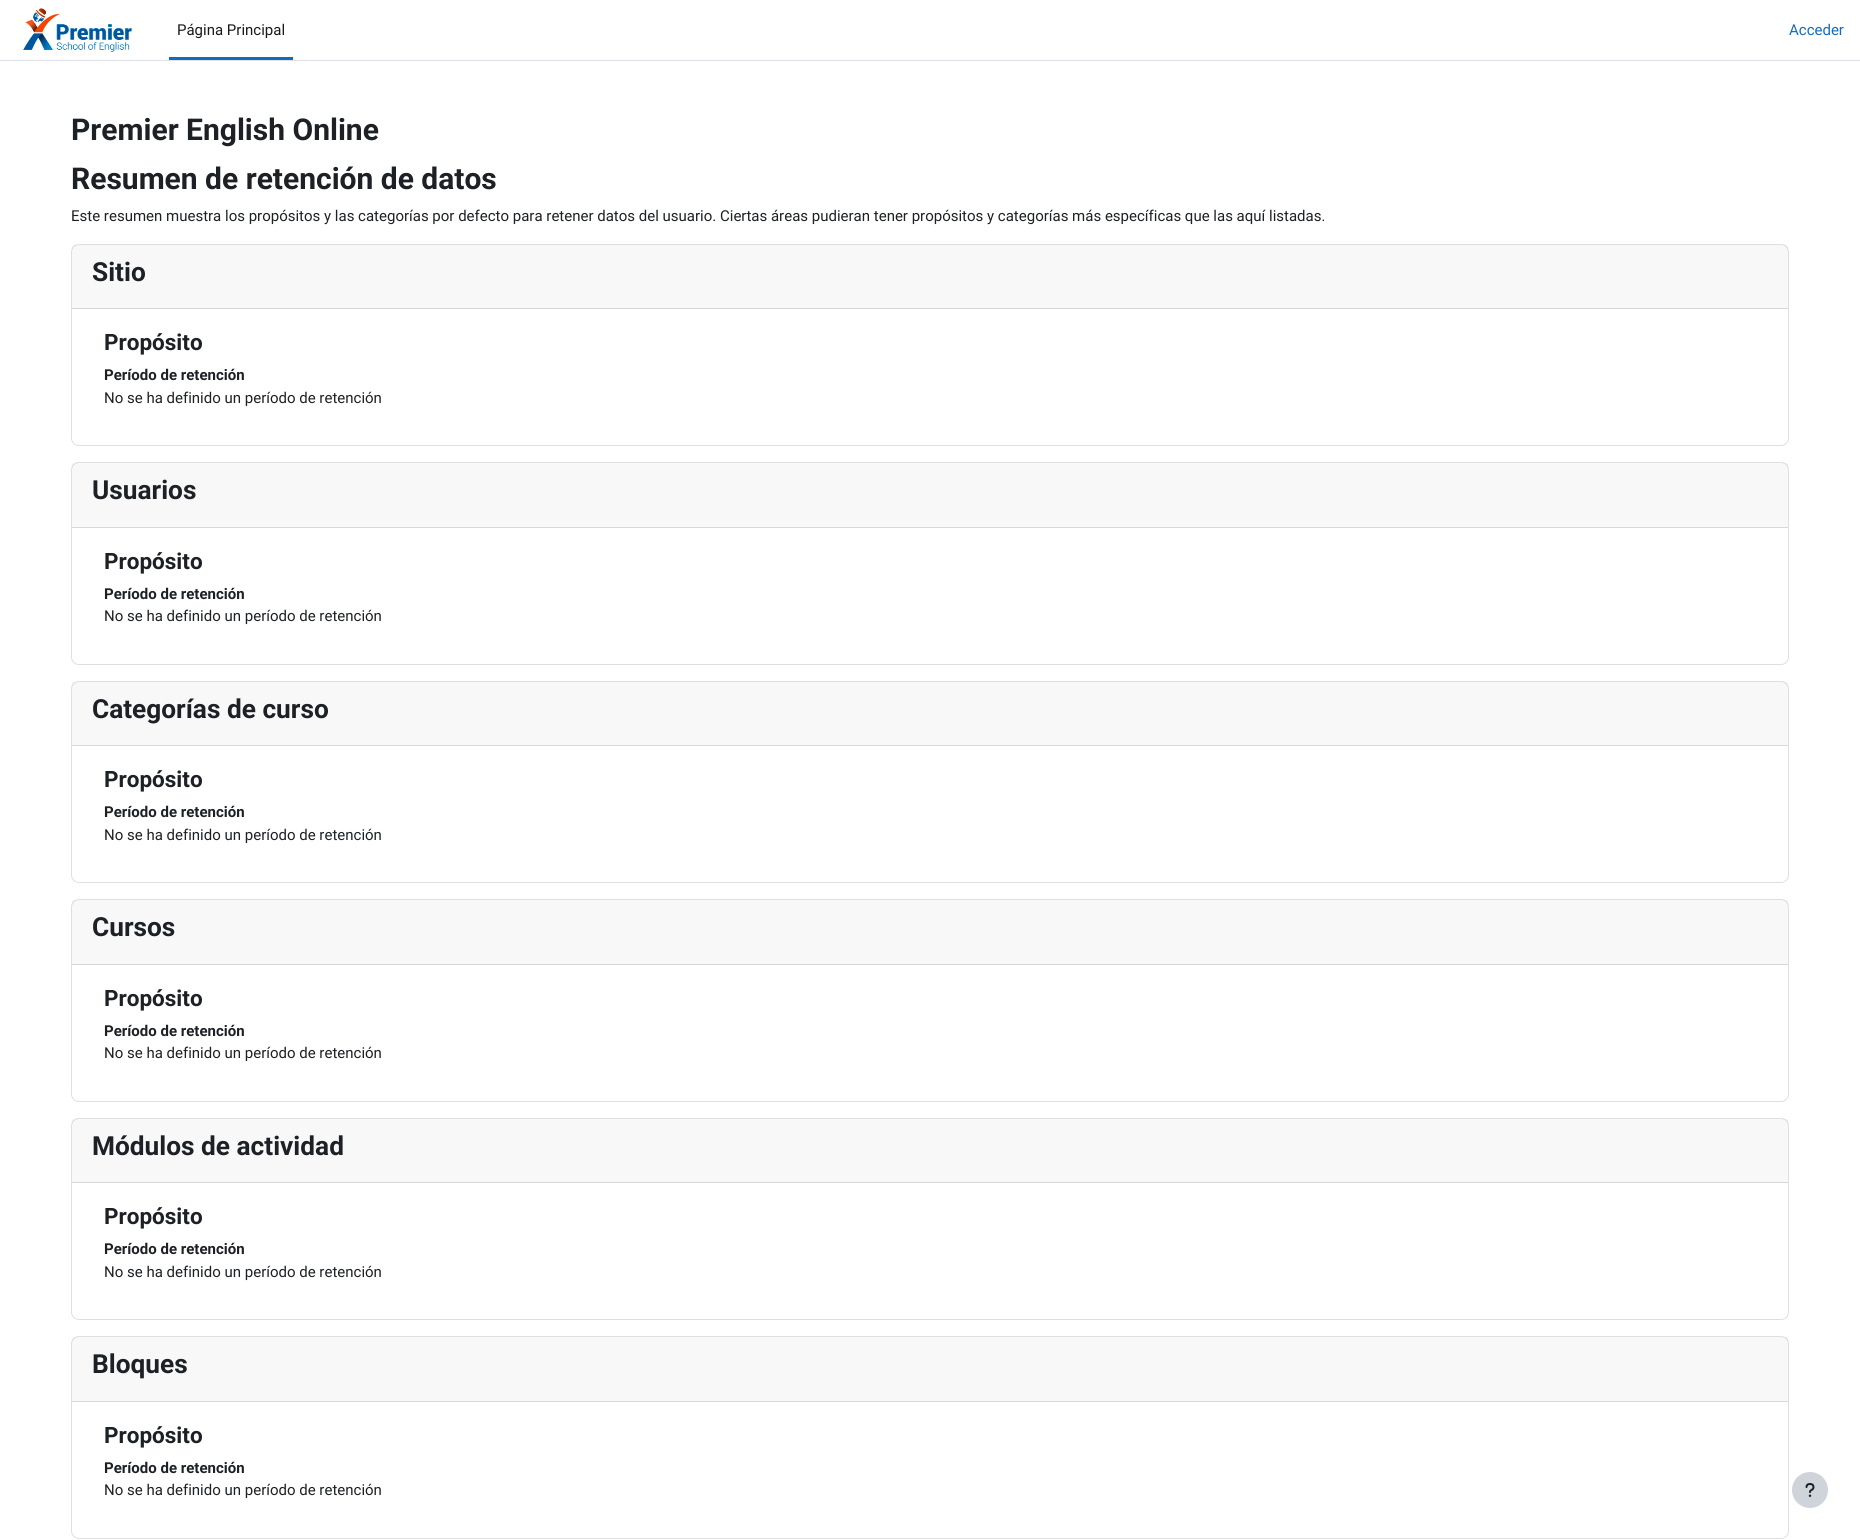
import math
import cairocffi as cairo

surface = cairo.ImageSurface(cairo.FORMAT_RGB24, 1860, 1540)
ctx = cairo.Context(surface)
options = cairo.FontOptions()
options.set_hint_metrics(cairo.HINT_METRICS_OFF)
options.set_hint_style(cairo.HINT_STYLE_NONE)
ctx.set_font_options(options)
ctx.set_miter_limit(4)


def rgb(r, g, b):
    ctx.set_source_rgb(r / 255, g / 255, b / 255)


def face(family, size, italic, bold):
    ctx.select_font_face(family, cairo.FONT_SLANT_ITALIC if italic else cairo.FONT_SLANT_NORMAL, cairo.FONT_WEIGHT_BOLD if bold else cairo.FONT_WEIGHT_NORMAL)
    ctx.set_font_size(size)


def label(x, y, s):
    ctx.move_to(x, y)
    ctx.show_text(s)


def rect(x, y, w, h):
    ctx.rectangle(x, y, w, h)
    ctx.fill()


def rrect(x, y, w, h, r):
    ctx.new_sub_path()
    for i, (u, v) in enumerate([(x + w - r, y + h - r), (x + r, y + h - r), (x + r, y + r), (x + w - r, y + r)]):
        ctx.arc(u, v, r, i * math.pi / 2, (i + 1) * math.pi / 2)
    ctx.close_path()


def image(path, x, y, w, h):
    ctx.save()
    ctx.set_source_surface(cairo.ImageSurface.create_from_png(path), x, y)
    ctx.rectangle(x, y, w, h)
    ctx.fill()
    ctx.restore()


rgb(255, 255, 255)
ctx.paint()
rgb(222, 226, 230)
rect(0, 60, 1860, 1)
image('image0.png', 23, 8, 109, 44)
rgb(15, 108, 191)
rect(169, 57, 124, 3)
face('Roboto', 15, 0, 0)
rgb(26, 26, 26)
label(177, 35, 'Página Principal')
rgb(15, 108, 191)
label(1789, 35, 'Acceder')
face('Roboto', 30, 0, 1)
rgb(29, 33, 37)
label(71, 140, 'Premier English Online')
label(71, 189, 'Resumen de retención de datos')
face('Roboto', 15, 0, 0)
label(71, 221, 'Este resumen muestra los propósitos y las categorías por defecto para retener datos del usuario. Ciertas áreas pudieran tener propósitos y categorías más específicas que las aquí listadas.')
rrect(71.5, 244.5, 1717, 201, 7.5)
rgb(223, 223, 223)
ctx.set_line_width(1)
ctx.stroke()
ctx.set_source_rgba(0, 0, 0, 0.03)
rect(72, 245, 1716, 63)
rgb(216, 216, 216)
rect(72, 308, 1716, 1)
face('Roboto', 26.25, 0, 1)
rgb(29, 33, 37)
label(92, 281, 'Sitio')
face('Roboto', 22.5, 0, 1)
label(104, 350, 'Propósito')
face('Roboto', 15, 0, 1)
label(104, 380, 'Período de retención')
face('Roboto', 15, 0, 0)
label(104, 403, 'No se ha definido un período de retención')
rrect(71.5, 462.5, 1717, 202, 7.5)
rgb(223, 223, 223)
ctx.stroke()
ctx.set_source_rgba(0, 0, 0, 0.03)
rect(72, 463, 1716, 64)
rgb(216, 216, 216)
rect(72, 527, 1716, 1)
face('Roboto', 26.25, 0, 1)
rgb(29, 33, 37)
label(92, 499, 'Usuarios')
face('Roboto', 22.5, 0, 1)
label(104, 569, 'Propósito')
face('Roboto', 15, 0, 1)
label(104, 599, 'Período de retención')
face('Roboto', 15, 0, 0)
label(104, 621, 'No se ha definido un período de retención')
rrect(71.5, 681.5, 1717, 201, 7.5)
rgb(223, 223, 223)
ctx.stroke()
ctx.set_source_rgba(0, 0, 0, 0.03)
rect(72, 682, 1716, 63)
rgb(216, 216, 216)
rect(72, 745, 1716, 1)
face('Roboto', 26.25, 0, 1)
rgb(29, 33, 37)
label(92, 718, 'Categorías de curso')
face('Roboto', 22.5, 0, 1)
label(104, 787, 'Propósito')
face('Roboto', 15, 0, 1)
label(104, 817, 'Período de retención')
face('Roboto', 15, 0, 0)
label(104, 840, 'No se ha definido un período de retención')
rrect(71.5, 899.5, 1717, 202, 7.5)
rgb(223, 223, 223)
ctx.stroke()
ctx.set_source_rgba(0, 0, 0, 0.03)
rect(72, 900, 1716, 64)
rgb(216, 216, 216)
rect(72, 964, 1716, 1)
face('Roboto', 26.25, 0, 1)
rgb(29, 33, 37)
label(92, 936, 'Cursos')
face('Roboto', 22.5, 0, 1)
label(104, 1006, 'Propósito')
face('Roboto', 15, 0, 1)
label(104, 1036, 'Período de retención')
face('Roboto', 15, 0, 0)
label(104, 1058, 'No se ha definido un período de retención')
rrect(71.5, 1118.5, 1717, 201, 7.5)
rgb(223, 223, 223)
ctx.stroke()
ctx.set_source_rgba(0, 0, 0, 0.03)
rect(72, 1119, 1716, 63)
rgb(216, 216, 216)
rect(72, 1182, 1716, 1)
face('Roboto', 26.25, 0, 1)
rgb(29, 33, 37)
label(92, 1155, 'Módulos de actividad')
face('Roboto', 22.5, 0, 1)
label(104, 1224, 'Propósito')
face('Roboto', 15, 0, 1)
label(104, 1254, 'Período de retención')
face('Roboto', 15, 0, 0)
label(104, 1277, 'No se ha definido un período de retención')
rrect(71.5, 1336.5, 1717, 202, 7.5)
rgb(223, 223, 223)
ctx.stroke()
ctx.set_source_rgba(0, 0, 0, 0.03)
rect(72, 1337, 1716, 64)
rgb(216, 216, 216)
rect(72, 1401, 1716, 1)
face('Roboto', 26.25, 0, 1)
rgb(29, 33, 37)
label(92, 1373, 'Bloques')
face('Roboto', 22.5, 0, 1)
label(104, 1443, 'Propósito')
face('Roboto', 15, 0, 1)
label(104, 1473, 'Período de retención')
face('Roboto', 15, 0, 0)
label(104, 1495, 'No se ha definido un período de retención')
rgb(206, 212, 218)
ctx.new_path()
ctx.arc(1810, 1490, 18, 0, 2 * math.pi)
ctx.fill()
image('image1.png', 1805, 1483, 10, 14)
surface.write_to_png('render.png')
